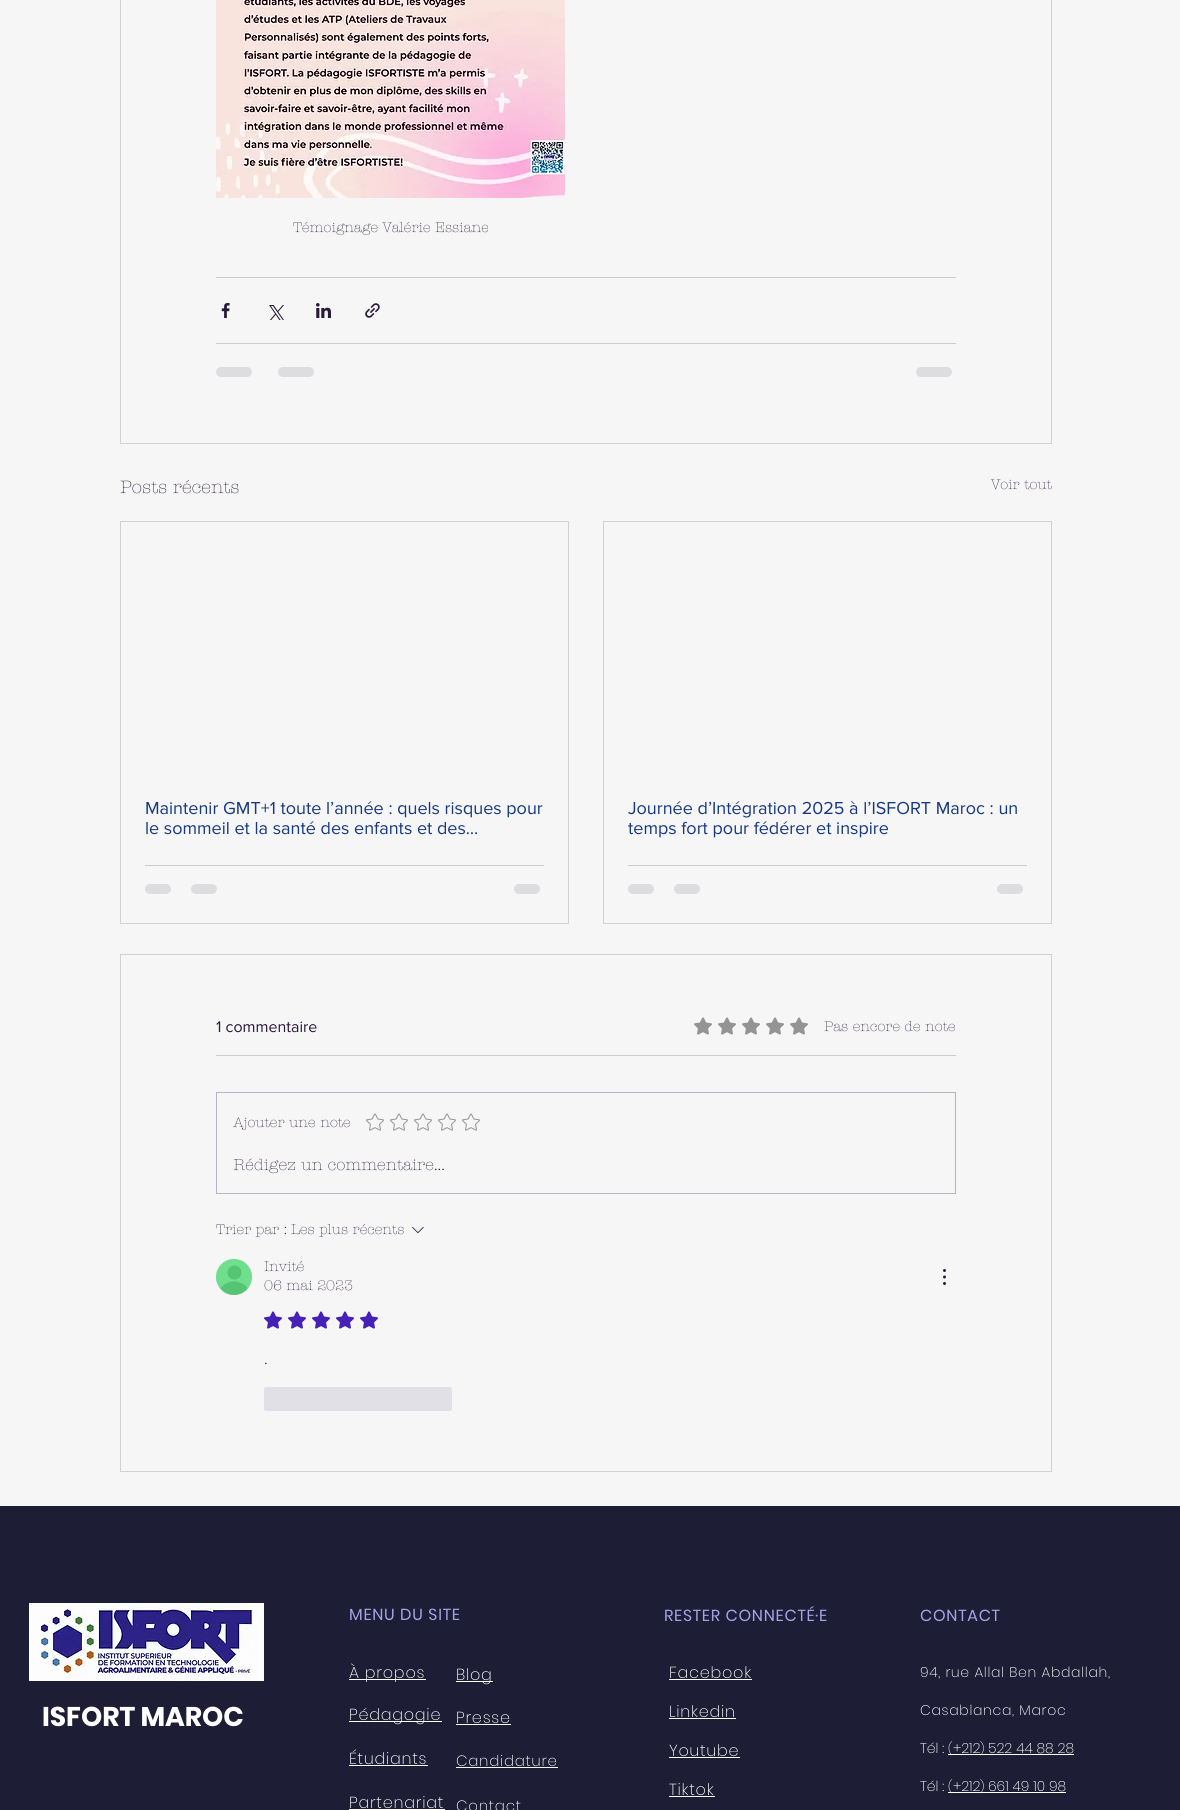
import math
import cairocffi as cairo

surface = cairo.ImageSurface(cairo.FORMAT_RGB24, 1180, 1810)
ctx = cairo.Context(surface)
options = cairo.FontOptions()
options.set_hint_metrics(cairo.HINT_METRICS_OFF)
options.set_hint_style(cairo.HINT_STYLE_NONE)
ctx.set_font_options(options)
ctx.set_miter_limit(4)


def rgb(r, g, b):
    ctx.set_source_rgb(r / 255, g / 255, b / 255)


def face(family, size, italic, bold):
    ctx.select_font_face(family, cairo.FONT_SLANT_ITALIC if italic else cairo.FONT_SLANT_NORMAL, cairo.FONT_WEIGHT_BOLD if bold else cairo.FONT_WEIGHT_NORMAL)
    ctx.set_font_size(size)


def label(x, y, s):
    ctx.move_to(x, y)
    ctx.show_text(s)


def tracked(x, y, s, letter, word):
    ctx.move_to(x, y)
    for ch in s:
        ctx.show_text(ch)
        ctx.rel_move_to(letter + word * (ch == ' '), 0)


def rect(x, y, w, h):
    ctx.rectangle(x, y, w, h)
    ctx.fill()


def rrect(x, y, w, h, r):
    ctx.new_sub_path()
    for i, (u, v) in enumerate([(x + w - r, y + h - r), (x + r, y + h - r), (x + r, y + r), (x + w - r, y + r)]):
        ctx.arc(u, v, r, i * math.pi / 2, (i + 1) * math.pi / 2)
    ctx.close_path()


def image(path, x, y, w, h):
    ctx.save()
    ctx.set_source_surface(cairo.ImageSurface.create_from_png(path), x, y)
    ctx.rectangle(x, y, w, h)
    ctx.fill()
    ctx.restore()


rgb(246, 246, 246)
ctx.paint()
ctx.rectangle(120.5, -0.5, 931, 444)
rgb(209, 209, 209)
ctx.set_line_width(1)
ctx.stroke()
image('image0.png', 216, 0, 349, 198)
face('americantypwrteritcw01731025 Light', 14, 0, 0)
rgb(40, 26, 57)
label(293, 232, 'Témoignage Valérie Essiane')
rgb(205, 202, 208)
rect(216, 277, 740, 1)
image('image1.png', 221, 303, 9, 15)
image('image2.png', 269, 305, 15, 15)
image('image3.png', 316, 303, 15, 15)
image('image4.png', 365, 303, 15, 15)
rect(216, 343, 740, 1)
rgb(221, 220, 223)
rrect(216, 367, 36, 10, 5)
ctx.fill()
rrect(278, 367, 36, 10, 5)
ctx.fill()
rrect(916, 367, 36, 10, 5)
ctx.fill()
face('americantypwrteritcw01731025 Light', 18, 0, 0)
rgb(40, 26, 57)
label(120, 493, 'Posts récents')
face('americantypwrteritcw01731025 Light', 14, 0, 0)
label(991, 489, 'Voir tout')
ctx.rectangle(120.5, 521.5, 448, 402)
rgb(209, 209, 209)
ctx.stroke()
face('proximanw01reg', 18, 0, 0)
rgb(23, 57, 129)
label(145, 814, 'Maintenir GMT+1 toute l’année : quels risques pour')
label(145, 834, 'le sommeil et la santé des enfants et des…')
rgb(205, 202, 208)
rect(145, 865, 399, 1)
rgb(221, 220, 223)
rrect(145, 884, 26, 10, 5)
ctx.fill()
rrect(191, 884, 26, 10, 5)
ctx.fill()
rrect(514, 884, 26, 10, 5)
ctx.fill()
ctx.rectangle(603.5, 521.5, 448, 402)
rgb(209, 209, 209)
ctx.stroke()
rgb(23, 57, 129)
label(628, 814, 'Journée d’Intégration 2025 à l’ISFORT Maroc : un')
label(628, 834, 'temps fort pour fédérer et inspire')
rgb(205, 202, 208)
rect(628, 865, 399, 1)
rgb(221, 220, 223)
rrect(628, 884, 26, 10, 5)
ctx.fill()
rrect(674, 884, 26, 10, 5)
ctx.fill()
rrect(997, 884, 26, 10, 5)
ctx.fill()
ctx.rectangle(120.5, 954.5, 931, 517)
rgb(209, 209, 209)
ctx.stroke()
face('proximanw01reg', 16, 0, 0)
rgb(40, 26, 57)
label(216, 1032, '1 commentaire')
image('image5.png', 694, 1017, 18, 18)
image('image5.png', 718, 1017, 18, 18)
image('image5.png', 742, 1017, 18, 18)
image('image5.png', 766, 1017, 18, 18)
image('image5.png', 790, 1017, 18, 18)
face('americantypwrteritcw01731025 Light', 14, 0, 0)
label(824, 1031, 'Pas encore de note')
rgb(205, 202, 208)
rect(216, 1055, 740, 1)
ctx.rectangle(216.5, 1092.5, 739, 101)
rgb(184, 180, 189)
ctx.stroke()
rgb(40, 26, 57)
label(233, 1127, 'Ajouter une note')
image('image6.png', 366, 1113, 18, 18)
image('image6.png', 390, 1113, 18, 18)
image('image6.png', 414, 1113, 18, 18)
image('image6.png', 438, 1113, 18, 18)
image('image6.png', 462, 1113, 18, 18)
face('americantypwrteritcw01731025 Light', 16, 0, 0)
label(233, 1170, 'Rédigez un commentaire...')
face('americantypwrteritcw01731025 Light', 14, 0, 0)
label(216, 1234, 'Trier par :')
label(291, 1234, 'Les plus récents')
image('image7.png', 412, 1226, 12, 8)
rgb(198, 198, 198)
ctx.arc(234, 1277, 18, 0, 2 * math.pi)
ctx.fill()
rgb(146, 146, 146)
ctx.arc(234.5, 1272.5, 7, 0, 2 * math.pi)
ctx.fill()
ctx.new_path()
ctx.move_to(247.5, 1288.5)
ctx.curve_to(240.5, 1297, 227.5, 1297, 220.5, 1288.5)
ctx.curve_to(226.5, 1279, 241.5, 1279, 247.5, 1288.5)
ctx.close_path()
ctx.fill()
ctx.set_source_rgba(0.098, 0.973, 0.341, 0.5)
ctx.arc(234, 1277, 18, 0, 2 * math.pi)
ctx.fill()
rgb(40, 26, 57)
label(264, 1271, 'Invité')
label(264, 1290, '06 mai 2023')
image('image8.png', 943, 1269, 3, 16)
image('image9.png', 264, 1311, 18, 18)
image('image9.png', 288, 1311, 18, 18)
image('image9.png', 312, 1311, 18, 18)
image('image9.png', 336, 1311, 18, 18)
image('image9.png', 360, 1311, 18, 18)
face('americantypwrteritcw01731025 Light', 16, 0, 0)
label(264, 1364, '.')
rgb(224, 224, 230)
rrect(264, 1387, 188, 24, 2)
ctx.fill()
rgb(29, 29, 53)
rect(0, 1506, 1180, 304)
image('image10.png', 29, 1603, 235, 78)
face('Poppins', 27, 0, 1)
rgb(255, 255, 255)
label(42, 1726, 'ISFORT MAROC')
face('Poppins', 16, 0, 0)
rgb(164, 163, 231)
tracked(349, 1620, 'MENU DU SITE', 0.75, 0)
rgb(255, 255, 255)
rect(349, 1679, 77, 1)
face('Poppins ExtraLight', 16, 0, 0)
tracked(349, 1678, 'À propos', 0.75, 0)
rect(349, 1721, 93, 1)
tracked(349, 1720, 'Pédagogie', 0.75, 0)
tracked(349, 1764, 'Étudiants', 0.75, 0)
rect(349, 1765, 79, 1)
tracked(349, 1808, 'Partenariat', 0.75, 0)
rect(349, 1809, 96, 1)
rect(456, 1681, 37, 1)
tracked(456, 1680, 'Blog', 0.75, 0)
tracked(456, 1723, 'Presse', 0.75, 0)
rect(456, 1724, 55, 1)
face('Poppins ExtraLight', 15, 0, 0)
rgb(246, 246, 246)
tracked(456, 1766, 'Candidature', 0.75, 0)
rect(456, 1767, 102, 1)
tracked(456, 1811, 'Contact', 0.75, 0)
face('Poppins', 16, 0, 0)
rgb(164, 163, 231)
tracked(664, 1621, 'RESTER CONNECTÉ·E', 0.75, 0)
face('Poppins ExtraLight', 16, 0, 0)
rgb(255, 255, 255)
tracked(669, 1678, 'Facebook', 0.75, 0)
rect(669, 1679, 83, 1)
tracked(669, 1717, 'Linkedin', 0.75, 0)
rect(669, 1718, 67, 1)
tracked(669, 1756, 'Youtube', 0.75, 0)
rect(669, 1757, 71, 1)
tracked(669, 1795, 'Tiktok', 0.75, 0)
rect(669, 1796, 46, 1)
face('Poppins', 16, 0, 0)
rgb(164, 163, 231)
tracked(920, 1621, 'CONTACT', 0.75, 0)
face('Poppins ExtraLight', 14, 0, 0)
rgb(255, 255, 255)
tracked(920, 1677, '94, rue Allal Ben Abdallah,', 0.7, 0)
tracked(920, 1715, 'Casablanca, Maroc', 0.7, 0)
label(920, 1753, 'Tél :')
rect(948, 1754, 126, 1)
face('Poppins ExtraLight', 12, 0, 0)
label(948, 1753, '(')
face('Poppins ExtraLight', 14, 0, 0)
label(953, 1753, '+212')
face('Poppins ExtraLight', 12, 0, 0)
label(980, 1753, ')')
face('Poppins ExtraLight', 14, 0, 0)
label(988, 1753, '522 44 88 28')
label(920, 1791, 'Tél :')
rect(948, 1792, 118, 1)
face('Poppins ExtraLight', 12, 0, 0)
label(948, 1791, '(')
face('Poppins ExtraLight', 14, 0, 0)
label(953, 1791, '+212')
face('Poppins ExtraLight', 12, 0, 0)
label(980, 1791, ')')
face('Poppins ExtraLight', 14, 0, 0)
label(988, 1791, '661 49 10 98')
surface.write_to_png('render.png')
